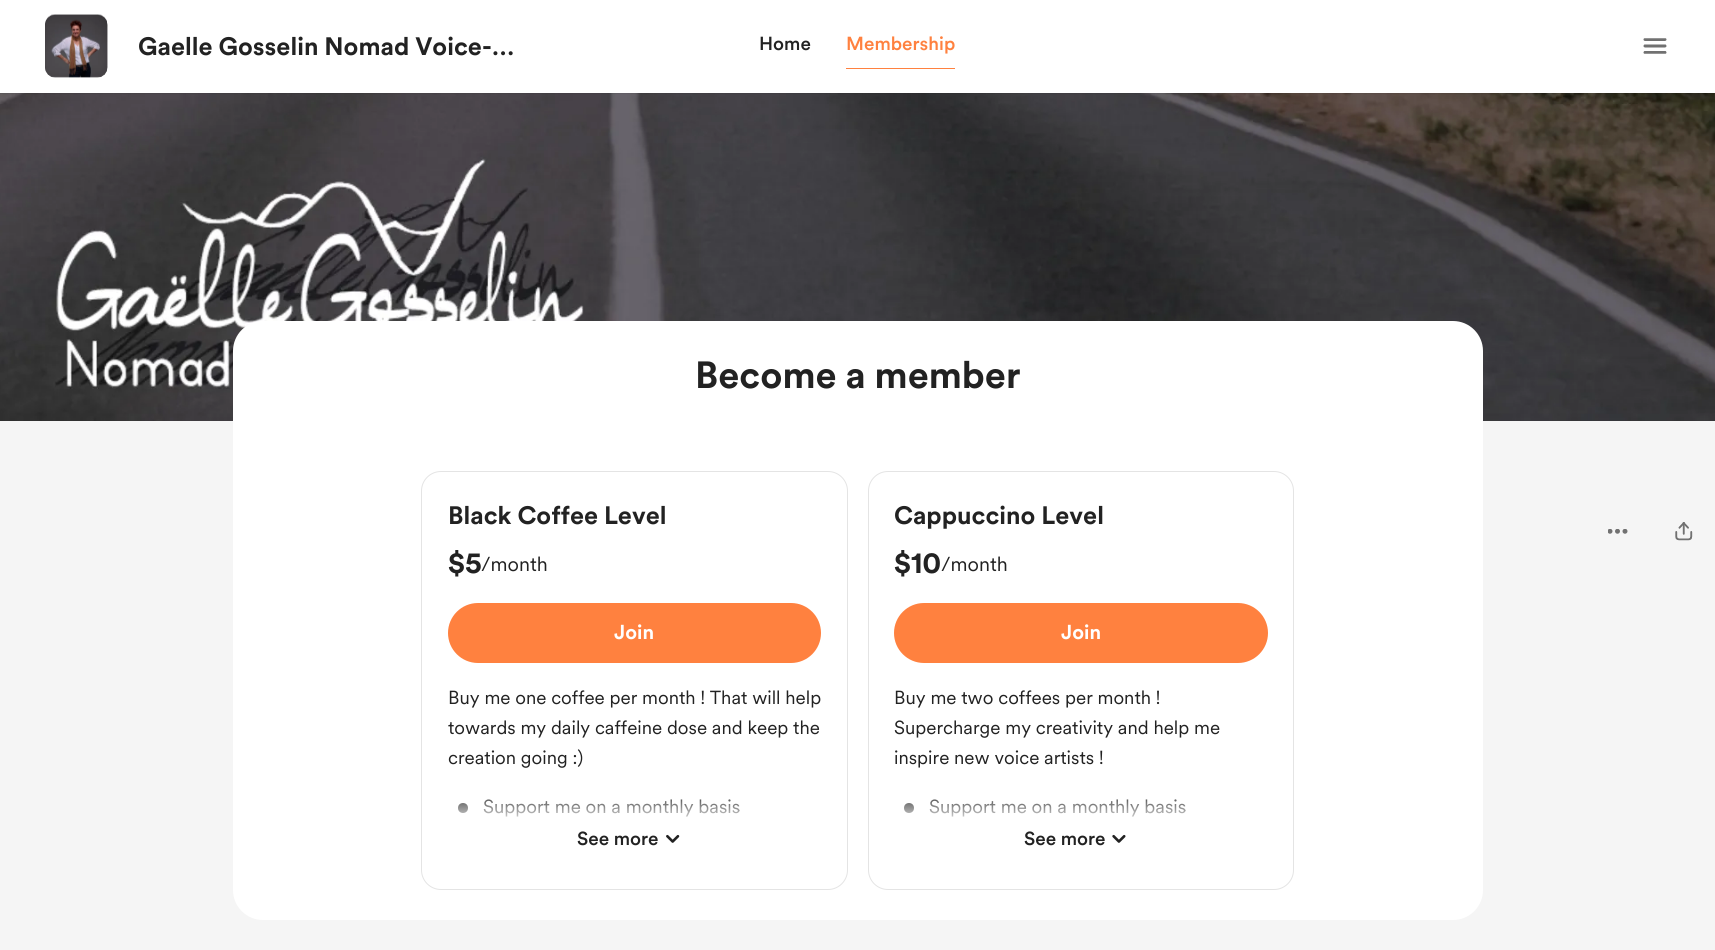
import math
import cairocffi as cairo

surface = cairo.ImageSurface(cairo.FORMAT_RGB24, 1715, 950)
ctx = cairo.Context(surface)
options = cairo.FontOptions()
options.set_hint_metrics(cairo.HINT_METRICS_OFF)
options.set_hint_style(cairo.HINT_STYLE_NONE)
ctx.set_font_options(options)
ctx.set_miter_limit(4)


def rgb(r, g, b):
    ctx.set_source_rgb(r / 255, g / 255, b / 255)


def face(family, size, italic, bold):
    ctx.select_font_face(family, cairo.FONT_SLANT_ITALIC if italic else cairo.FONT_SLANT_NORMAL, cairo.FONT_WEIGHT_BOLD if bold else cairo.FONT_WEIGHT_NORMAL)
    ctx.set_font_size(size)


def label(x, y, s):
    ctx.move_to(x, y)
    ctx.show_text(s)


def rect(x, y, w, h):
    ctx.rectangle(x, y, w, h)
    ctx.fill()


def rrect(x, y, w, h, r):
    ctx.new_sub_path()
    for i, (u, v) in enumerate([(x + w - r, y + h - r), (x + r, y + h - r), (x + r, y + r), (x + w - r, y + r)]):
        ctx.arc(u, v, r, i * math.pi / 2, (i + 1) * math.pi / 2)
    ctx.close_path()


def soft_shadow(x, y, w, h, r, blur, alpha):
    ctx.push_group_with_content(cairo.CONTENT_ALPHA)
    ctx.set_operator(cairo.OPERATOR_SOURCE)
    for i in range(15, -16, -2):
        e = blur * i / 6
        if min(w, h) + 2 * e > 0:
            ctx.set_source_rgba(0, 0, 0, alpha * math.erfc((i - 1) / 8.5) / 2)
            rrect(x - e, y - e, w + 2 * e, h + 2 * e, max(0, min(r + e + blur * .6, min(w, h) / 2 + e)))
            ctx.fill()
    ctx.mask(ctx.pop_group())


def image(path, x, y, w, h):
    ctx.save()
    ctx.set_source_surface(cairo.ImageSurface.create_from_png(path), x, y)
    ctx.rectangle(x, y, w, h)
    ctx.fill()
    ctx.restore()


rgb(245, 245, 245)
ctx.paint()
image('image3.png', 0, 93, 1715, 328)
rgb(0, 0, 0)
soft_shadow(0, 1, 1715, 93, 0, 0.5, 0.06)
rgb(255, 255, 255)
rect(0, 0, 1715, 93)
image('image0.png', 45, 14, 63, 64)
image('image1.png', 45, 14, 63, 64)
face('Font', 25, 0, 1)
rgb(34, 34, 34)
label(138, 55, 'Gaelle Gosselin Nomad Voice-…')
face('Font Medium', 18.75, 0, 0)
label(759, 50, 'Home')
rgb(255, 129, 63)
label(846, 50, 'Membership')
rect(846, 68, 109, 1)
image('image2.png', 1643, 38, 24, 16)
rgb(255, 255, 255)
rrect(233, 321, 1250, 599, 30)
ctx.fill()
face('Font', 37.5, 0, 1)
rgb(34, 34, 34)
label(695, 388, 'Become a member')
rrect(421.5, 471.5, 426, 418, 19.5)
rgb(228, 228, 228)
ctx.set_line_width(1)
ctx.stroke()
face('Font', 25, 0, 1)
rgb(34, 34, 34)
label(448, 524, 'Black Coffee Level')
face('Font', 30, 0, 1)
label(448, 573, '$5')
face('Font', 20, 0, 0)
label(481, 571, '/month')
rgb(255, 129, 63)
rrect(448, 603, 373, 60, 30)
ctx.fill()
face('Font', 20, 0, 1)
rgb(255, 255, 255)
label(614, 639, 'Join')
face('Font', 18.75, 0, 0)
rgb(34, 34, 34)
label(448, 704, 'Buy me one coffee per month ! That will help')
label(448, 734, 'towards my daily caffeine dose and keep the')
label(448, 764, 'creation going :)')
ctx.new_path()
ctx.arc(463, 808, 5, 0, 2 * math.pi)
ctx.fill()
label(483, 813, 'Support me on a monthly basis')
gradient = cairo.LinearGradient(634, 789, 634, 864)
gradient.add_color_stop_rgba(0, 1, 1, 1, 0)
gradient.add_color_stop_rgba(0.5, 1, 1, 1, 1)
ctx.set_source(gradient)
rect(458, 799, 281, 18)
face('Font Medium', 18.75, 0, 0)
rgb(34, 34, 34)
label(577, 845, 'See more')
image('image4.png', 666, 834, 14, 9)
rrect(868.5, 471.5, 425, 418, 19.5)
rgb(228, 228, 228)
ctx.stroke()
face('Font', 25, 0, 1)
rgb(34, 34, 34)
label(894, 524, 'Cappuccino Level')
face('Font', 30, 0, 1)
label(894, 573, '$10')
face('Font', 20, 0, 0)
label(941, 571, '/month')
rgb(255, 129, 63)
rrect(894, 603, 374, 60, 30)
ctx.fill()
face('Font', 20, 0, 1)
rgb(255, 255, 255)
label(1061, 639, 'Join')
face('Font', 18.75, 0, 0)
rgb(34, 34, 34)
label(894, 704, 'Buy me two coffees per month !')
label(894, 734, 'Supercharge my creativity and help me')
label(894, 764, 'inspire new voice artists !')
ctx.new_path()
ctx.arc(909, 808, 5, 0, 2 * math.pi)
ctx.fill()
label(929, 813, 'Support me on a monthly basis')
gradient = cairo.LinearGradient(1081, 789, 1081, 864)
gradient.add_color_stop_rgba(0, 1, 1, 1, 0)
gradient.add_color_stop_rgba(0.5, 1, 1, 1, 1)
ctx.set_source(gradient)
rect(904, 799, 281, 18)
face('Font Medium', 18.75, 0, 0)
rgb(34, 34, 34)
label(1024, 845, 'See more')
image('image5.png', 1112, 834, 14, 9)
image('image6.png', 1608, 529, 20, 5)
image('image7.png', 1675, 522, 18, 19)
surface.write_to_png('render.png')
